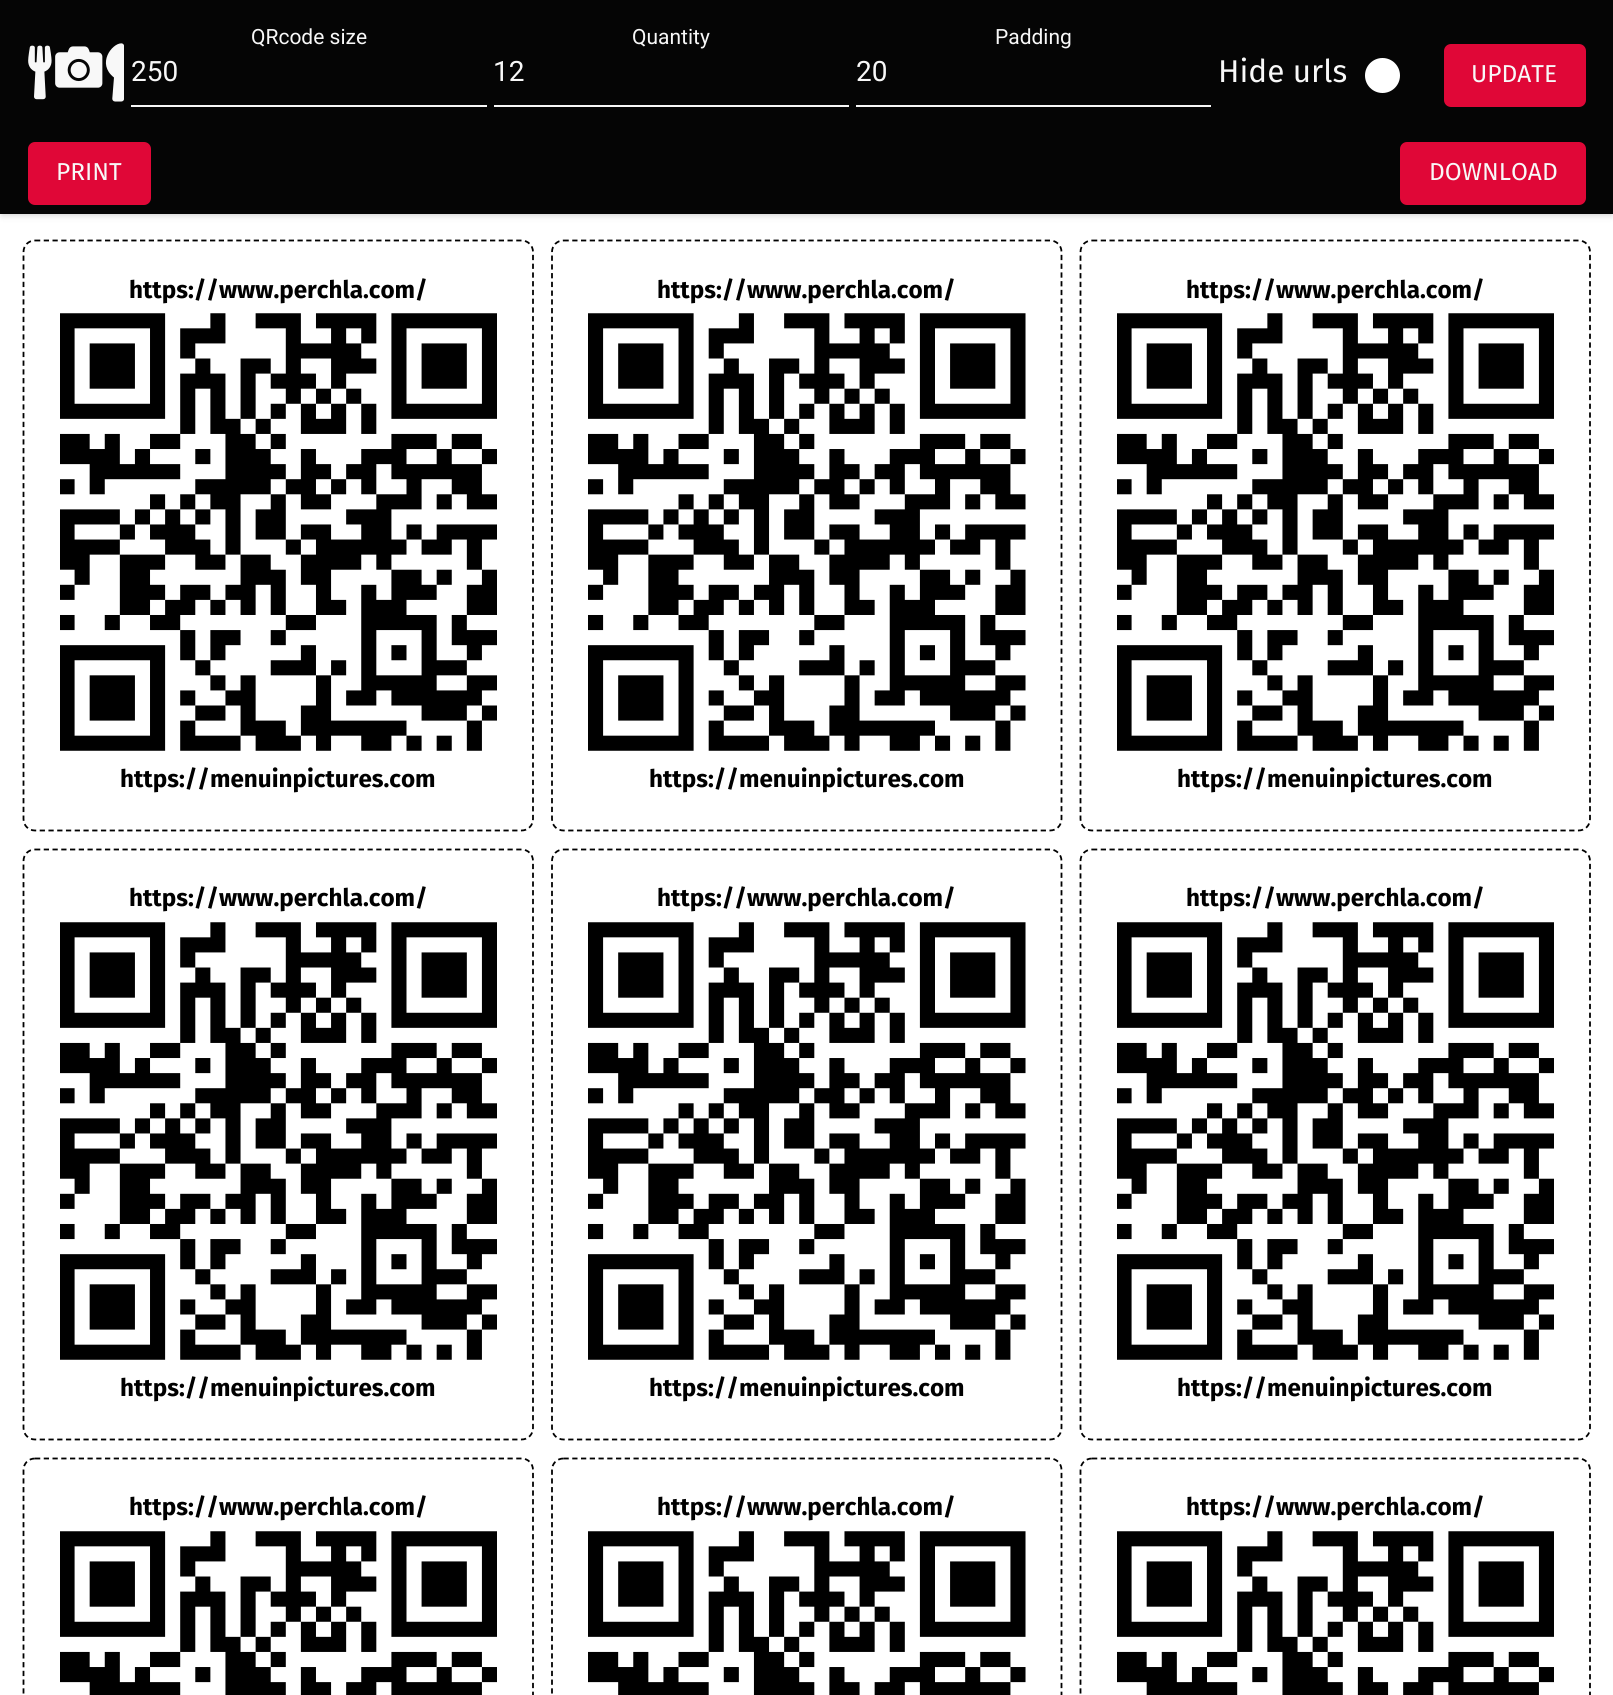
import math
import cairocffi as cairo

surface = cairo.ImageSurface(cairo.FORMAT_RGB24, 1613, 1695)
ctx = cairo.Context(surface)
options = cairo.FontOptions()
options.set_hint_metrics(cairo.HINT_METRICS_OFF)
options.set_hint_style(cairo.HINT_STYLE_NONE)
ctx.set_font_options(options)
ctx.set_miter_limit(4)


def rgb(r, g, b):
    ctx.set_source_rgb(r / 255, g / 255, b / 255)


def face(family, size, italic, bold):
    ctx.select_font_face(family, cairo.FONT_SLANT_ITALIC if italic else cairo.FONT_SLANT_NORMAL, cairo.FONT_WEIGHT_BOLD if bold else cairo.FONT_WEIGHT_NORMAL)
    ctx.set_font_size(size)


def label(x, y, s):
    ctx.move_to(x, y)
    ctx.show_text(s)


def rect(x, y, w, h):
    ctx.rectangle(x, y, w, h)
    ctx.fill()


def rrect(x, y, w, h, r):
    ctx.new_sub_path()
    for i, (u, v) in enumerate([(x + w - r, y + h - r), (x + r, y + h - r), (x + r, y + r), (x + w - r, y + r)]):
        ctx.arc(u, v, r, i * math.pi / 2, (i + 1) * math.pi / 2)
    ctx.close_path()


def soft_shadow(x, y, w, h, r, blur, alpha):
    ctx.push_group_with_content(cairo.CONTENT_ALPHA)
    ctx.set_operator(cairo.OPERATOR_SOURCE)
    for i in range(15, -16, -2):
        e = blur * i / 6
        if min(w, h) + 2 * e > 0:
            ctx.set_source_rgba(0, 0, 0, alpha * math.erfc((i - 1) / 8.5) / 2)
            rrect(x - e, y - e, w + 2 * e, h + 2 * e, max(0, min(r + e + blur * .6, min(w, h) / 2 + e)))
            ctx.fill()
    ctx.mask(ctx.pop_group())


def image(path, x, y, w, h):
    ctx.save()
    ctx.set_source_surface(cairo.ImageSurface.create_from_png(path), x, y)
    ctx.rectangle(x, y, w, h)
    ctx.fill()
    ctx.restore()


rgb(255, 255, 255)
ctx.paint()
rgb(0, 0, 0)
soft_shadow(2, 5, 1610, 210, 0, 3.5, 0.2)
rgb(5, 5, 5)
rect(0, 0, 1613, 214)
image('image0.png', 28, 43, 96, 59)
face('Roboto', 21, 0, 0)
rgb(248, 248, 248)
label(251, 44, 'QRcode size')
rect(131, 105, 356, 2)
face('Roboto', 28, 0, 0)
label(131, 81, '250')
face('Roboto', 21, 0, 0)
label(632, 44, 'Quantity')
rect(494, 105, 355, 2)
face('Roboto', 28, 0, 0)
label(493, 81, '12')
face('Roboto', 21, 0, 0)
label(995, 44, 'Padding')
rect(856, 105, 355, 2)
face('Roboto', 28, 0, 0)
label(856, 81, '20')
face('Fira Sans', 31.5, 0, 0)
label(1218, 82, 'Hide urls')
rgb(255, 255, 255)
ctx.new_path()
ctx.arc(1382.5, 75.5, 17.5, 0, 2 * math.pi)
ctx.fill()
rgb(224, 7, 55)
rrect(1444, 44, 142, 63, 7)
ctx.fill()
face('Fira Sans', 24.5, 0, 0)
rgb(248, 248, 248)
label(1471, 82, 'UPDATE')
rgb(224, 7, 55)
rrect(28, 142, 123, 63, 7)
ctx.fill()
rgb(248, 248, 248)
label(56, 180, 'PRINT')
rgb(224, 7, 55)
rrect(1400, 142, 186, 63, 7)
ctx.fill()
rgb(248, 248, 248)
label(1429, 180, 'DOWNLOAD')
ctx.new_path()
ctx.move_to(35, 240.5)
ctx.line_to(521.5, 240.5)
ctx.curve_to(528, 240.5, 533, 245.5, 533, 252)
ctx.line_to(533, 819)
ctx.curve_to(533, 825.5, 528, 830.5, 521.5, 830.5)
ctx.line_to(35, 830.5)
ctx.curve_to(28.5, 830.5, 23.5, 825.5, 23.5, 819)
ctx.line_to(23.5, 252)
ctx.curve_to(23.5, 245.5, 28.5, 240.5, 35, 240.5)
ctx.close_path()
rgb(0, 0, 0)
ctx.set_line_width(1.8)
ctx.set_dash([5.25, 3.5])
ctx.stroke()
face('Fira Sans', 24.25, 0, 1)
label(129, 298, 'https://www.perchla.com/')
image('image1.png', 60, 313, 437, 438)
label(120, 787, 'https://menuinpictures.com')
ctx.new_path()
ctx.move_to(563.5, 240.5)
ctx.line_to(1050, 240.5)
ctx.curve_to(1056.5, 240.5, 1061.5, 245.5, 1061.5, 252)
ctx.line_to(1061.5, 819)
ctx.curve_to(1061.5, 825.5, 1056.5, 830.5, 1050, 830.5)
ctx.line_to(563.5, 830.5)
ctx.curve_to(557, 830.5, 552, 825.5, 552, 819)
ctx.line_to(552, 252)
ctx.curve_to(552, 245.5, 557, 240.5, 563.5, 240.5)
ctx.close_path()
ctx.stroke()
label(657, 298, 'https://www.perchla.com/')
image('image2.png', 588, 313, 438, 438)
label(649, 787, 'https://menuinpictures.com')
ctx.new_path()
ctx.move_to(1092, 240.5)
ctx.line_to(1578.5, 240.5)
ctx.curve_to(1585, 240.5, 1590, 245.5, 1590, 252)
ctx.line_to(1590, 819)
ctx.curve_to(1590, 825.5, 1585, 830.5, 1578.5, 830.5)
ctx.line_to(1092, 830.5)
ctx.curve_to(1085.5, 830.5, 1080.5, 825.5, 1080.5, 819)
ctx.line_to(1080.5, 252)
ctx.curve_to(1080.5, 245.5, 1085.5, 240.5, 1092, 240.5)
ctx.close_path()
ctx.stroke()
label(1186, 298, 'https://www.perchla.com/')
image('image1.png', 1117, 313, 437, 438)
label(1177, 787, 'https://menuinpictures.com')
ctx.new_path()
ctx.move_to(35, 849.5)
ctx.line_to(521.5, 849.5)
ctx.curve_to(528, 849.5, 533, 854.5, 533, 861)
ctx.line_to(533, 1428)
ctx.curve_to(533, 1434.5, 528, 1439.5, 521.5, 1439.5)
ctx.line_to(35, 1439.5)
ctx.curve_to(28.5, 1439.5, 23.5, 1434.5, 23.5, 1428)
ctx.line_to(23.5, 861)
ctx.curve_to(23.5, 854.5, 28.5, 849.5, 35, 849.5)
ctx.close_path()
ctx.stroke()
label(129, 906, 'https://www.perchla.com/')
image('image1.png', 60, 922, 437, 438)
label(120, 1396, 'https://menuinpictures.com')
ctx.new_path()
ctx.move_to(563.5, 849.5)
ctx.line_to(1050, 849.5)
ctx.curve_to(1056.5, 849.5, 1061.5, 854.5, 1061.5, 861)
ctx.line_to(1061.5, 1428)
ctx.curve_to(1061.5, 1434.5, 1056.5, 1439.5, 1050, 1439.5)
ctx.line_to(563.5, 1439.5)
ctx.curve_to(557, 1439.5, 552, 1434.5, 552, 1428)
ctx.line_to(552, 861)
ctx.curve_to(552, 854.5, 557, 849.5, 563.5, 849.5)
ctx.close_path()
ctx.stroke()
label(657, 906, 'https://www.perchla.com/')
image('image2.png', 588, 922, 438, 438)
label(649, 1396, 'https://menuinpictures.com')
ctx.new_path()
ctx.move_to(1092, 849.5)
ctx.line_to(1578.5, 849.5)
ctx.curve_to(1585, 849.5, 1590, 854.5, 1590, 861)
ctx.line_to(1590, 1428)
ctx.curve_to(1590, 1434.5, 1585, 1439.5, 1578.5, 1439.5)
ctx.line_to(1092, 1439.5)
ctx.curve_to(1085.5, 1439.5, 1080.5, 1434.5, 1080.5, 1428)
ctx.line_to(1080.5, 861)
ctx.curve_to(1080.5, 854.5, 1085.5, 849.5, 1092, 849.5)
ctx.close_path()
ctx.stroke()
label(1186, 906, 'https://www.perchla.com/')
image('image1.png', 1117, 922, 437, 438)
label(1177, 1396, 'https://menuinpictures.com')
ctx.new_path()
ctx.move_to(35, 1458.5)
ctx.line_to(521.5, 1458.5)
ctx.curve_to(528, 1458.5, 533, 1463.5, 533, 1470)
ctx.line_to(533, 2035)
ctx.curve_to(533, 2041.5, 528, 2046.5, 521.5, 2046.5)
ctx.line_to(35, 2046.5)
ctx.curve_to(28.5, 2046.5, 23.5, 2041.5, 23.5, 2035)
ctx.line_to(23.5, 1470)
ctx.curve_to(23.5, 1463.5, 28.5, 1458.5, 35, 1458.5)
ctx.close_path()
ctx.stroke()
label(129, 1515, 'https://www.perchla.com/')
image('image3.png', 60, 1531, 437, 164)
ctx.new_path()
ctx.move_to(563.5, 1458.5)
ctx.line_to(1050, 1458.5)
ctx.curve_to(1056.5, 1458.5, 1061.5, 1463.5, 1061.5, 1470)
ctx.line_to(1061.5, 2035)
ctx.curve_to(1061.5, 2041.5, 1056.5, 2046.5, 1050, 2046.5)
ctx.line_to(563.5, 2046.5)
ctx.curve_to(557, 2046.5, 552, 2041.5, 552, 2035)
ctx.line_to(552, 1470)
ctx.curve_to(552, 1463.5, 557, 1458.5, 563.5, 1458.5)
ctx.close_path()
ctx.stroke()
label(657, 1515, 'https://www.perchla.com/')
image('image4.png', 588, 1531, 438, 164)
ctx.new_path()
ctx.move_to(1092, 1458.5)
ctx.line_to(1578.5, 1458.5)
ctx.curve_to(1585, 1458.5, 1590, 1463.5, 1590, 1470)
ctx.line_to(1590, 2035)
ctx.curve_to(1590, 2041.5, 1585, 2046.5, 1578.5, 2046.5)
ctx.line_to(1092, 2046.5)
ctx.curve_to(1085.5, 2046.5, 1080.5, 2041.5, 1080.5, 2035)
ctx.line_to(1080.5, 1470)
ctx.curve_to(1080.5, 1463.5, 1085.5, 1458.5, 1092, 1458.5)
ctx.close_path()
ctx.stroke()
label(1186, 1515, 'https://www.perchla.com/')
image('image3.png', 1117, 1531, 437, 164)
surface.write_to_png('render.png')
